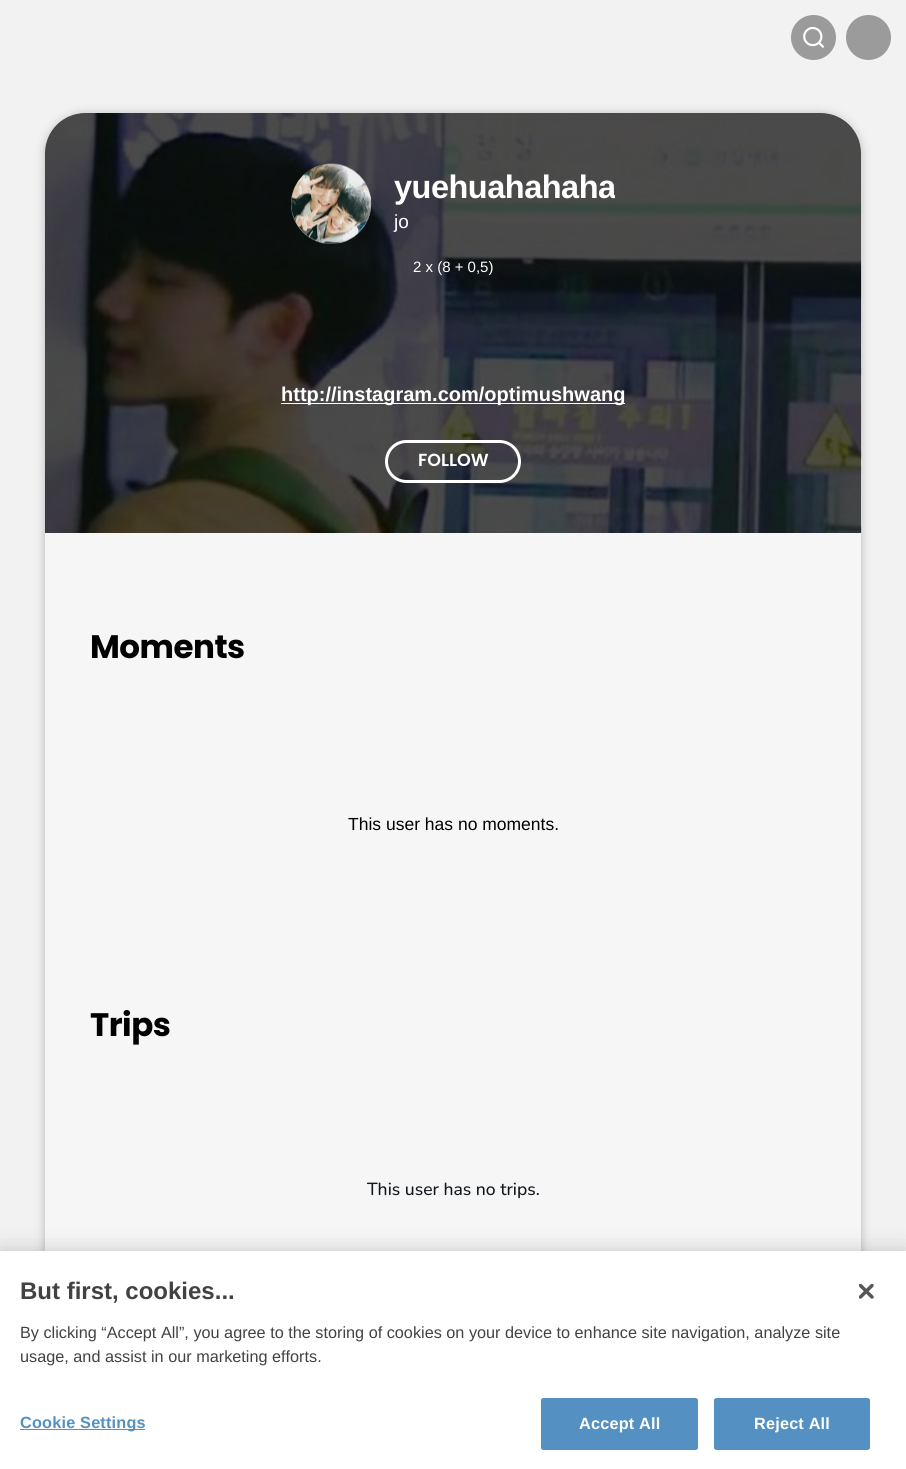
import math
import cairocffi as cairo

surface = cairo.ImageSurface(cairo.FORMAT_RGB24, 906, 1469)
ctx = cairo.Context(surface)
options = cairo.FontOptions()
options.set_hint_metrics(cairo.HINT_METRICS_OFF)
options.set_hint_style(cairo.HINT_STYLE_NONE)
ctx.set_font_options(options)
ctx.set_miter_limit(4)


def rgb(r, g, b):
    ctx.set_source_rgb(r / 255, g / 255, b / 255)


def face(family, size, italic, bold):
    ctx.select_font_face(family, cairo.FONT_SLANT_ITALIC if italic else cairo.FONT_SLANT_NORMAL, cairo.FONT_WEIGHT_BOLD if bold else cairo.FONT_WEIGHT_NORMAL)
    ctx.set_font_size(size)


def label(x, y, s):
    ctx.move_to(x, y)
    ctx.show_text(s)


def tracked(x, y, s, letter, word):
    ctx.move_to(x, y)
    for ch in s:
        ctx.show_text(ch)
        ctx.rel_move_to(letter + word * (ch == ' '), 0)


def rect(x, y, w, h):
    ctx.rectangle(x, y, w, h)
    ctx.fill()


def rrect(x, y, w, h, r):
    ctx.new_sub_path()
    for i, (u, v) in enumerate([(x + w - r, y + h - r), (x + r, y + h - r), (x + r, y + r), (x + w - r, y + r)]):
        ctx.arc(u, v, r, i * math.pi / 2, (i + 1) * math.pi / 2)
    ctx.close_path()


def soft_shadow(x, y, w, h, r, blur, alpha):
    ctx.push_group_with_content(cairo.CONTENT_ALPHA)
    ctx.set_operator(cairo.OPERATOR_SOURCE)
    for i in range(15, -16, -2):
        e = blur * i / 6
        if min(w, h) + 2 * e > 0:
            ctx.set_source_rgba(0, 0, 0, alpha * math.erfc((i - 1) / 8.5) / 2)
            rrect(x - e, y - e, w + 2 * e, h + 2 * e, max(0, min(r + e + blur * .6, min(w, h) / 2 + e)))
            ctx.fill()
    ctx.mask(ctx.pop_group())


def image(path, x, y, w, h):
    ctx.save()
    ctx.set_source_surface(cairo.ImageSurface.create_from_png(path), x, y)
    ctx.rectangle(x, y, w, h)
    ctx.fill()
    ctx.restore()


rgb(242, 242, 242)
ctx.paint()
rgb(155, 155, 155)
ctx.arc(813.5, 37.5, 22.5, 0, 2 * math.pi)
ctx.fill()
image('image0.png', 803, 26, 22, 22)
ctx.arc(868.5, 37.5, 22.5, 0, 2 * math.pi)
ctx.fill()
rgb(0, 0, 0)
soft_shadow(45, 114, 816, 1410, 40, 5, 0.25)
rgb(246, 246, 246)
ctx.new_path()
ctx.move_to(85, 113)
ctx.line_to(821, 113)
ctx.curve_to(843, 113, 861, 131, 861, 153)
ctx.line_to(861, 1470)
ctx.line_to(45, 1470)
ctx.line_to(45, 153)
ctx.curve_to(45, 131, 63, 113, 85, 113)
ctx.close_path()
ctx.fill()
image('image1.png', 45, 113, 817, 420)
ctx.set_source_rgba(0, 0, 0, 0.7)
ctx.new_path()
ctx.move_to(85, 113)
ctx.line_to(821, 113)
ctx.curve_to(843, 113, 861, 131, 861, 153)
ctx.line_to(861, 533)
ctx.line_to(45, 533)
ctx.line_to(45, 153)
ctx.curve_to(45, 131, 63, 113, 85, 113)
ctx.close_path()
ctx.fill()
rgb(146, 145, 136)
ctx.arc(331, 204, 40, 0, 2 * math.pi)
ctx.fill()
image('image2.png', 291, 163, 81, 81)
ctx.save()
ctx.rectangle(394, 170, 221, 36)
ctx.clip()
face('Liberation Sans', 32.5, 0, 1)
rgb(255, 255, 255)
tracked(394, 198, 'yuehuahahaha', -0.5, 0)
ctx.restore()
face('Liberation Sans', 19, 0, 0)
rgb(255, 255, 255)
label(394, 228, 'jo')
face('Liberation Sans', 15, 0, 0)
label(413, 272, '2 x (8 + 0,5)')
rect(281, 403, 344, 1)
face('Liberation Sans', 20, 0, 1)
label(281, 401, 'http://instagram.com/optimushwang')
rrect(386.5, 441.5, 133, 40, 20)
ctx.set_line_width(3)
ctx.stroke()
face('Poppins SemiBold', 17.5, 0, 0)
label(418, 466, 'FOLLOW')
face('Poppins', 32.5, 0, 1)
rgb(0, 0, 0)
tracked(90, 658, 'Moments', -0.5, 0)
face('Liberation Sans', 17.5, 0, 0)
label(348, 830, 'This user has no moments.')
face('Poppins', 32.5, 0, 1)
tracked(90, 1036, 'Trips', -0.5, 0)
face('Nunito Medium', 17.5, 0, 0)
rgb(18, 24, 30)
label(367, 1195, 'This user has no trips.')
rgb(0, 0, 0)
soft_shadow(0, 1251, 906, 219, 0, 11, 0.2)
rgb(255, 255, 255)
rect(0, 1251, 906, 218)
face('Liberation Sans', 24, 0, 1)
rgb(66, 66, 66)
label(20, 1299, 'But first, cookies...')
face('Liberation Sans', 16.25, 0, 0)
label(20, 1338, 'By clicking “Accept All”, you agree to the storing of cookies on your device to enhance site navigation, analyze site')
label(20, 1362, 'usage, and assist in our marketing efforts.')
rgb(84, 145, 194)
rect(20, 1429, 125, 1)
face('Liberation Sans', 16.25, 0, 1)
tracked(20, 1428, 'Cookie Settings', 0.2, 0)
rrect(541.5, 1398.5, 156, 51, 2)
ctx.fill_preserve()
ctx.set_line_width(1)
ctx.stroke()
rgb(255, 255, 255)
tracked(579, 1429, 'Accept All', 0.2, 0)
rgb(84, 145, 194)
rrect(714.5, 1398.5, 155, 51, 2)
ctx.fill_preserve()
ctx.stroke()
rgb(255, 255, 255)
tracked(754, 1429, 'Reject All', 0.2, 0)
image('image3.png', 859, 1284, 15, 15)
surface.write_to_png('render.png')
